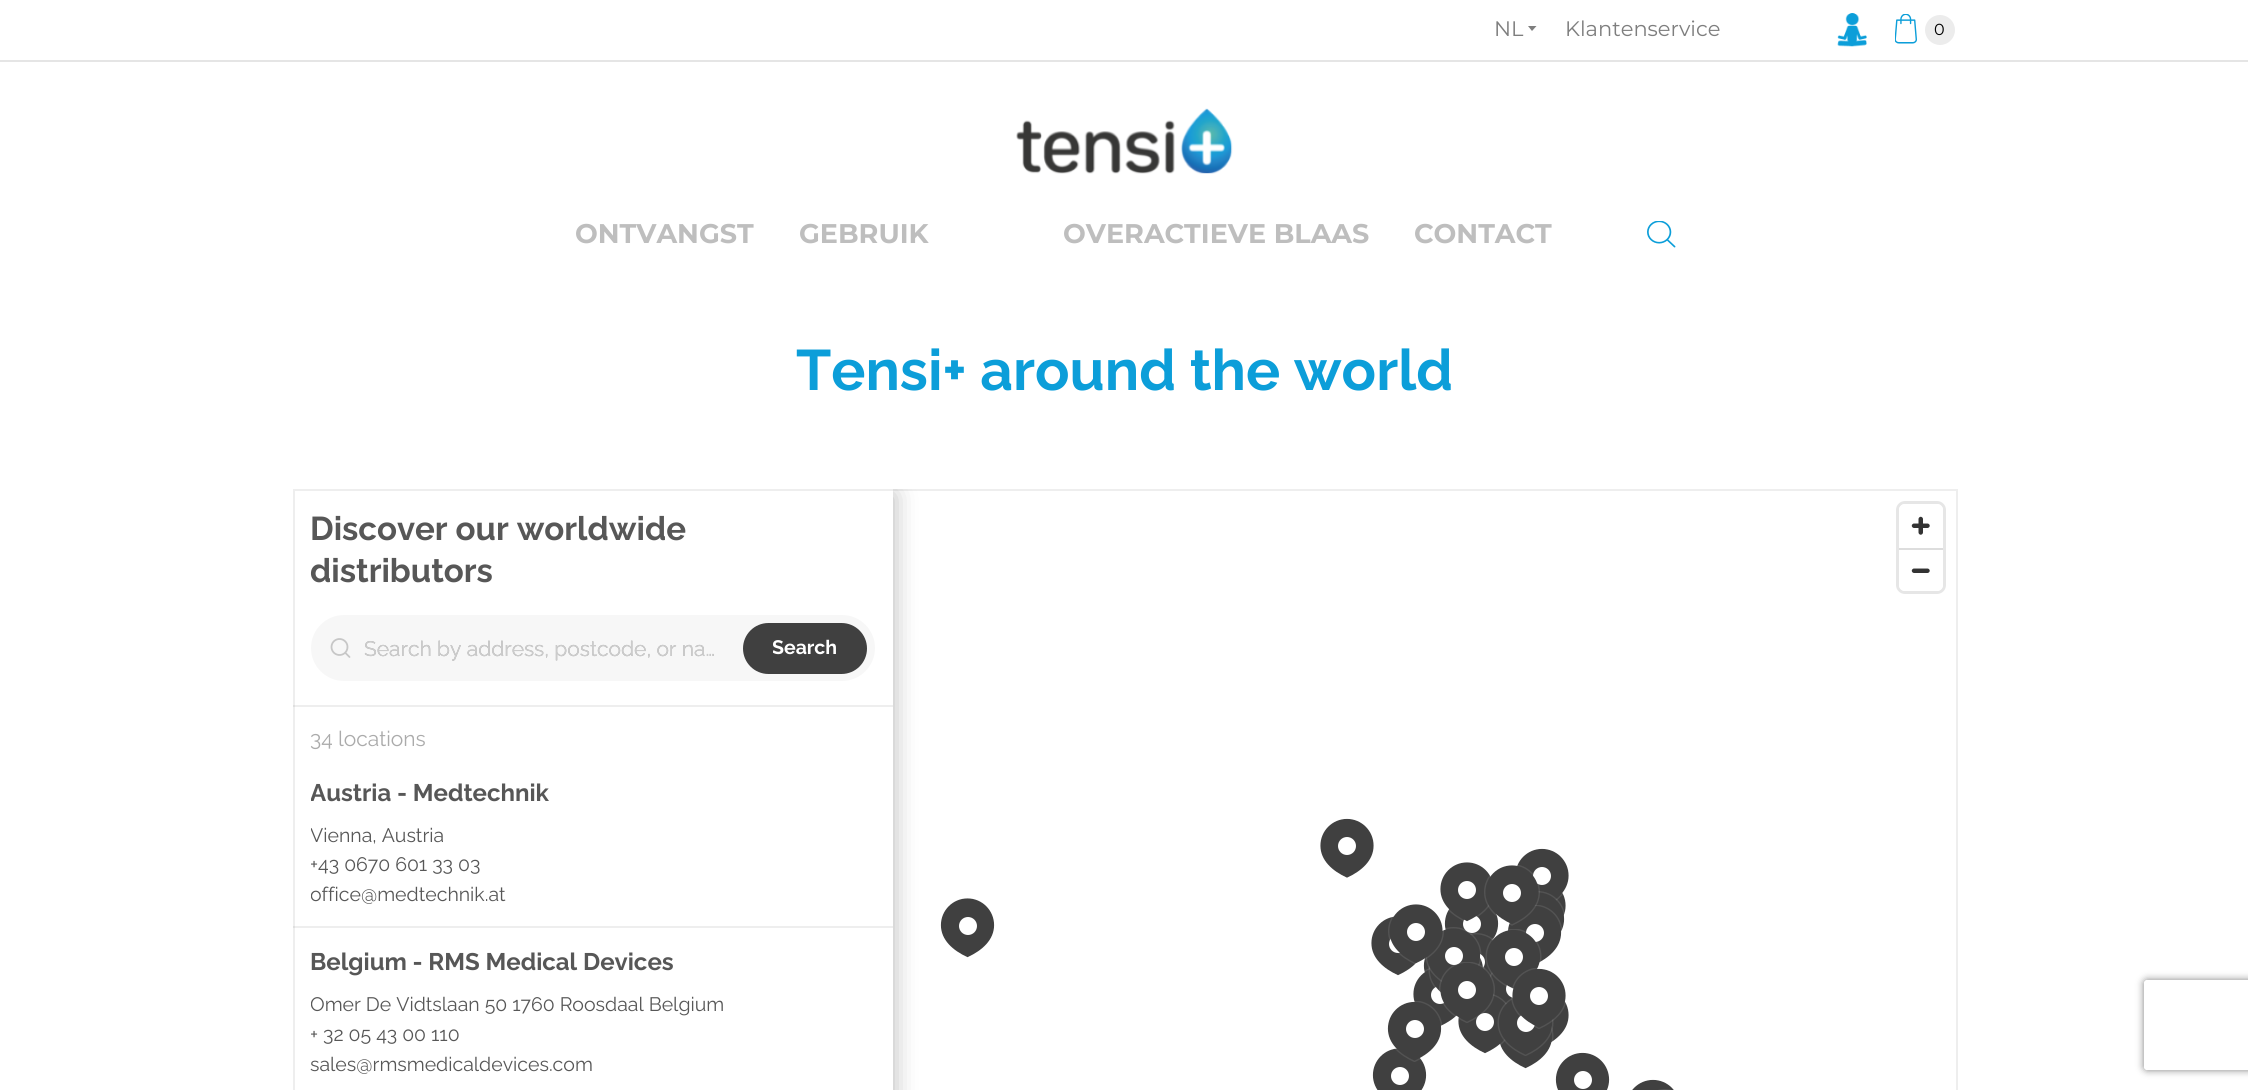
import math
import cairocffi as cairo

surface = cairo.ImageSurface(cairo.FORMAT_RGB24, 2248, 1090)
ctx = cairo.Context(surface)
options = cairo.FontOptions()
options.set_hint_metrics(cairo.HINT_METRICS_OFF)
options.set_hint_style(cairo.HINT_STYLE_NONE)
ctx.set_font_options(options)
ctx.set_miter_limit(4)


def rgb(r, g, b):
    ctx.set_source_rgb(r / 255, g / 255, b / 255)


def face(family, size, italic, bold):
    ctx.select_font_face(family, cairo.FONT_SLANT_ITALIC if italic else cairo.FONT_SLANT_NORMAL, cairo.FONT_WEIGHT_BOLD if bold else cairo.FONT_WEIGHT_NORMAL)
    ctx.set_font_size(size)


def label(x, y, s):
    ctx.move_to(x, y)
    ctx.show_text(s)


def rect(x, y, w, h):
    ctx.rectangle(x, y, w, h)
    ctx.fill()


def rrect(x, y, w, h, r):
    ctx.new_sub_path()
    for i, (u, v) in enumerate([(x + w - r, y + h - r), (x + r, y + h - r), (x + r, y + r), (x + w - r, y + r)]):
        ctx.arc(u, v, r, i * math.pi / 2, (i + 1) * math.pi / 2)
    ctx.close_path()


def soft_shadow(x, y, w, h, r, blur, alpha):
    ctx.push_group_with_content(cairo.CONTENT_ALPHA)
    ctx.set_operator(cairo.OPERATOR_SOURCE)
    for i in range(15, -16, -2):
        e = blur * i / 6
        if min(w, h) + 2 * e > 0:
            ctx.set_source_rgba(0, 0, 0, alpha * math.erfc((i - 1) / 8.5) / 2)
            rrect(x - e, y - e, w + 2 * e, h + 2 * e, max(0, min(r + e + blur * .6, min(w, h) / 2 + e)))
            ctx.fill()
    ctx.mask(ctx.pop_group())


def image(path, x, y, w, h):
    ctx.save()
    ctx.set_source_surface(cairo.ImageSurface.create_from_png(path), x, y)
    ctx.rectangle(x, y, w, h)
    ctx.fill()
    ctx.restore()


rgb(255, 255, 255)
ctx.paint()
rgb(229, 229, 229)
rect(0, 60, 2248, 2)
face('Montserrat', 21, 0, 0)
rgb(126, 126, 126)
label(1494, 36, 'NL')
ctx.set_fill_rule(cairo.FILL_RULE_EVEN_ODD)
ctx.new_path()
ctx.move_to(1532, 31)
ctx.line_to(1528, 26)
ctx.line_to(1536.5, 26)
ctx.close_path()
ctx.fill()
label(1565, 36, 'Klantenservice')
image('image0.png', 1837, 13, 30, 34)
image('image1.png', 1895, 14, 22, 30)
rgb(236, 236, 236)
ctx.arc(1940, 30, 15, 0, 2 * math.pi)
ctx.fill()
face('Montserrat', 16, 0, 0)
rgb(0, 0, 0)
label(1934, 35, '0')
image('image2.png', 1016, 108, 217, 66)
face('Montserrat', 27, 0, 1)
rgb(190, 190, 190)
label(575, 243, 'ONTVANGST')
label(799, 243, 'GEBRUIK')
label(1063, 243, 'OVERACTIEVE BLAAS')
label(1414, 243, 'CONTACT')
image('image3.png', 1647, 221, 29, 27)
face('Raleway', 57, 0, 1)
rgb(12, 158, 217)
label(796, 390, 'Tensi+ around the world')
ctx.save()
ctx.set_fill_rule(cairo.FILL_RULE_WINDING)
ctx.rectangle(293, 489, 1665, 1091)
ctx.clip()
rgb(0, 0, 0)
soft_shadow(293, 495, 600, 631, 0, 12, 0.3)
ctx.restore()
rgb(255, 255, 255)
rect(293, 489, 600, 216)
rgb(238, 238, 238)
rect(293, 705, 600, 2)
rgb(247, 247, 247)
rrect(311, 615, 564, 66, 33)
ctx.fill()
image('image4.png', 330, 638, 21, 20)
rgb(64, 64, 64)
rrect(743, 623, 124, 51, 25.5)
ctx.fill()
rgb(255, 255, 255)
rect(293, 707, 600, 383)
rgb(238, 238, 238)
rect(293, 926, 600, 2)
rrect(1897.5, 502.5, 47, 90, 7.5)
rgb(230, 230, 230)
ctx.set_line_width(3)
ctx.stroke()
rgb(255, 255, 255)
rrect(1899, 504, 44, 87, 6)
ctx.fill()
image('image5.png', 1911, 516, 19, 19)
rgb(221, 221, 221)
rect(1899, 548, 44, 2)
image('image6.png', 1911, 568, 19, 5)
image('image7.png', 1320, 818, 54, 60)
rgb(255, 255, 255)
ctx.arc(1347, 846, 9, 0, 2 * math.pi)
ctx.fill()
image('image14.png', 1444, 904, 55, 37)
ctx.arc(1472, 924, 9, 0, 2 * math.pi)
ctx.fill()
image('image8.png', 1440, 862, 52, 60)
ctx.arc(1467, 890, 9, 0, 2 * math.pi)
ctx.fill()
image('image15.png', 1555, 892, 11, 26)
image('image10.png', 1516, 848, 53, 53)
ctx.arc(1542, 876, 9, 0, 2 * math.pi)
ctx.fill()
image('image11.png', 1534, 891, 31, 45)
image('image18.png', 1507, 905, 55, 60)
ctx.arc(1535, 933, 9, 0, 2 * math.pi)
ctx.fill()
image('image9.png', 1484, 865, 56, 61)
ctx.arc(1512, 893, 9, 0, 2 * math.pi)
ctx.fill()
image('image12.png', 940, 898, 55, 60)
ctx.arc(968, 926, 9, 0, 2 * math.pi)
ctx.fill()
image('image21.png', 1423, 957, 8, 17)
image('image23.png', 1413, 967, 45, 60)
image('image16.png', 1371, 916, 49, 60)
ctx.arc(1398, 944, 9, 0, 2 * math.pi)
ctx.fill()
image('image19.png', 1469, 933, 25, 45)
ctx.arc(1476, 962, 9, 0, 2 * math.pi)
ctx.fill()
ctx.arc(1440, 995, 9, 0, 2 * math.pi)
ctx.fill()
image('image22.png', 1428, 955, 57, 39)
image('image17.png', 1425, 927, 57, 55)
ctx.arc(1454, 956, 9, 0, 2 * math.pi)
ctx.fill()
image('image25.png', 1489, 972, 24, 33)
ctx.arc(1515, 989, 9, 0, 2 * math.pi)
ctx.fill()
image('image20.png', 1485, 929, 57, 60)
image('image31.png', 1372, 1048, 55, 42)
image('image27.png', 1387, 1001, 55, 61)
image('image30.png', 1550, 999, 19, 46)
image('image32.png', 1499, 1025, 55, 44)
image('image28.png', 1458, 994, 49, 60)
ctx.arc(1485, 1022, 9, 0, 2 * math.pi)
ctx.fill()
image('image24.png', 1439, 962, 56, 61)
image('image13.png', 1388, 904, 56, 60)
ctx.arc(1416, 932, 9, 0, 2 * math.pi)
ctx.fill()
ctx.arc(1514, 957, 9, 0, 2 * math.pi)
ctx.fill()
ctx.arc(1467, 990, 9, 0, 2 * math.pi)
ctx.fill()
image('image29.png', 1497, 997, 57, 59)
ctx.arc(1526, 1023, 9, 0, 2 * math.pi)
ctx.fill()
image('image26.png', 1511, 968, 55, 61)
ctx.arc(1539, 996, 9, 0, 2 * math.pi)
ctx.fill()
ctx.arc(1415, 1029, 9, 0, 2 * math.pi)
ctx.fill()
ctx.arc(1400, 1076, 9, 0, 2 * math.pi)
ctx.fill()
image('image33.png', 1555, 1052, 55, 38)
ctx.arc(1583, 1080, 9, 0, 2 * math.pi)
ctx.fill()
image('image34.png', 1632, 1079, 42, 11)
image('image35.png', 1658, 1089, 13, 1)
ctx.rectangle(294, 490, 1663, 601)
ctx.set_source_rgba(0.341, 0.341, 0.341, 0.1)
ctx.set_line_width(2)
ctx.stroke()
face('Raleway', 33, 0, 1)
rgb(87, 87, 87)
label(310, 540, 'Discover our worldwide')
label(310, 582, 'distributors')
face('Raleway', 21, 0, 0)
rgb(171, 171, 171)
label(364, 656, 'Search by address, postcode, or na…')
ctx.save()
ctx.set_fill_rule(cairo.FILL_RULE_WINDING)
ctx.rectangle(365, 636, 351, 24)
ctx.clip()
rgb(204, 204, 204)
label(364, 656, 'Search by address, postcode, or na…')
ctx.restore()
ctx.save()
ctx.set_fill_rule(cairo.FILL_RULE_WINDING)
ctx.rectangle(773, 636, 64, 24)
ctx.clip()
face('Raleway', 19.5, 0, 1)
rgb(255, 255, 255)
label(772, 654, 'Search')
ctx.restore()
label(310, 746, '34 locations')
ctx.save()
ctx.set_fill_rule(cairo.FILL_RULE_WINDING)
ctx.rectangle(311, 776, 564, 132)
ctx.clip()
face('Raleway', 24, 0, 1)
rgb(87, 87, 87)
label(310, 801, 'Austria - Medtechnik')
face('Raleway', 19.5, 0, 0)
label(310, 842, 'Vienna, Austria')
ctx.restore()
face('Raleway', 19.5, 0, 0)
rgb(87, 87, 87)
label(310, 871, '+43 0670 601 33 03')
ctx.save()
ctx.set_fill_rule(cairo.FILL_RULE_WINDING)
ctx.rectangle(311, 884, 195, 24)
ctx.clip()
label(310, 901, 'office@medtechnik.at')
ctx.restore()
face('Raleway', 24, 0, 1)
label(310, 970, 'Belgium - RMS Medical Devices')
ctx.save()
ctx.set_fill_rule(cairo.FILL_RULE_WINDING)
ctx.rectangle(311, 945, 564, 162)
ctx.clip()
face('Raleway', 19.5, 0, 0)
label(310, 1011, 'Omer De Vidtslaan 50 1760 Roosdaal Belgium')
ctx.restore()
face('Raleway', 19.5, 0, 0)
label(310, 1041, '+ 32 05 43 00 110')
label(310, 1071, 'sales@rmsmedicaldevices.com')
ctx.save()
ctx.new_path()
ctx.move_to(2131, 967)
ctx.line_to(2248, 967)
ctx.line_to(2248, 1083)
ctx.line_to(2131, 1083)
ctx.close_path()
ctx.move_to(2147, 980)
ctx.line_to(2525, 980)
ctx.curve_to(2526.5, 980, 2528, 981.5, 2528, 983)
ctx.line_to(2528, 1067)
ctx.curve_to(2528, 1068.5, 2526.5, 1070, 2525, 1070)
ctx.line_to(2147, 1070)
ctx.curve_to(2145.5, 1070, 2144, 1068.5, 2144, 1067)
ctx.line_to(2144, 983)
ctx.curve_to(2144, 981.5, 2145.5, 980, 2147, 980)
ctx.close_path()
ctx.clip()
rgb(128, 128, 128)
soft_shadow(2144, 980, 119, 90, 3, 4, 1)
ctx.restore()
surface.write_to_png('render.png')
